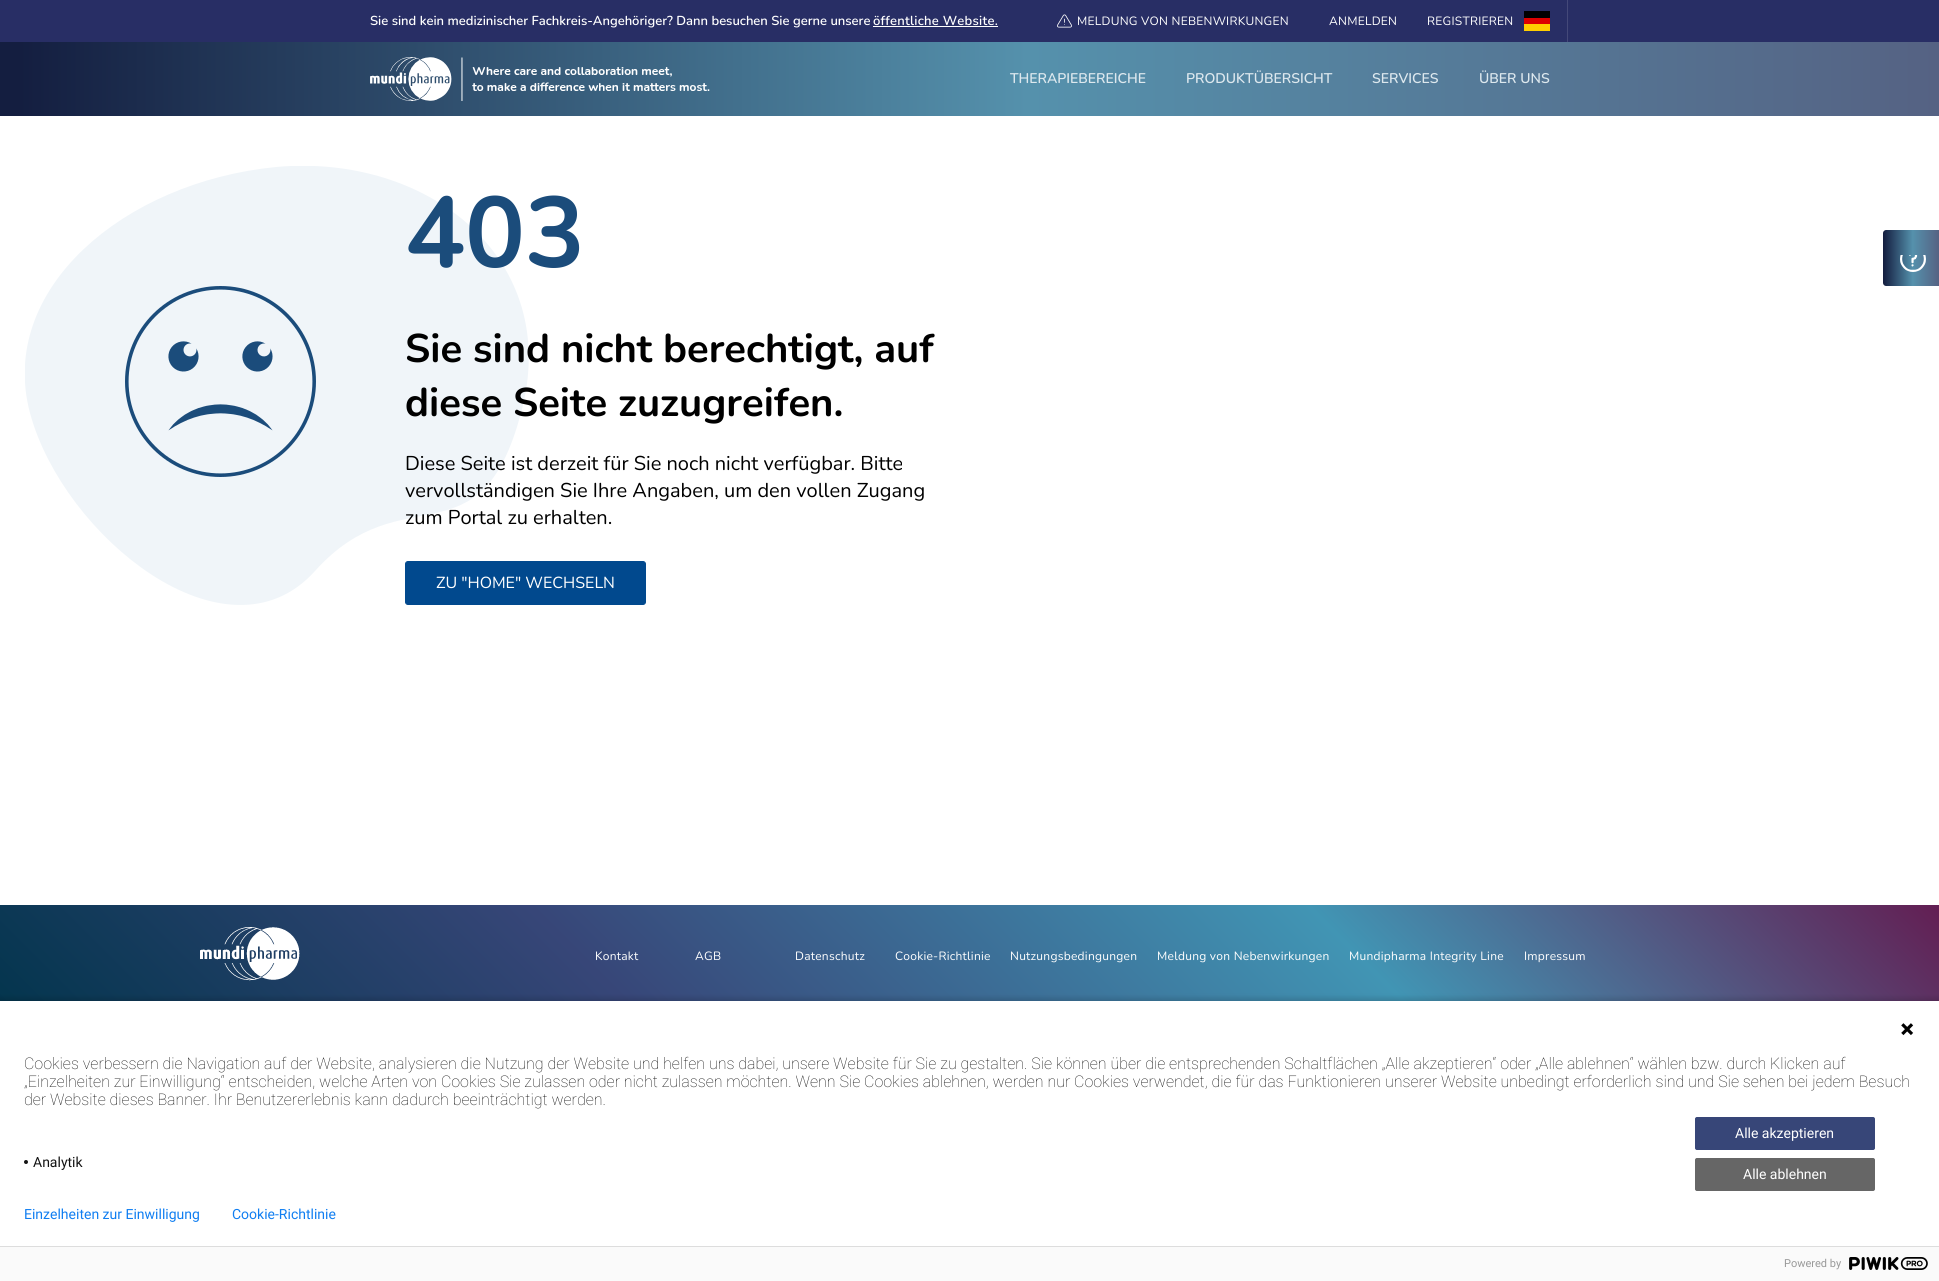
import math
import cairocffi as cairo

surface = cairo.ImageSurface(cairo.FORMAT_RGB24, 1939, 1281)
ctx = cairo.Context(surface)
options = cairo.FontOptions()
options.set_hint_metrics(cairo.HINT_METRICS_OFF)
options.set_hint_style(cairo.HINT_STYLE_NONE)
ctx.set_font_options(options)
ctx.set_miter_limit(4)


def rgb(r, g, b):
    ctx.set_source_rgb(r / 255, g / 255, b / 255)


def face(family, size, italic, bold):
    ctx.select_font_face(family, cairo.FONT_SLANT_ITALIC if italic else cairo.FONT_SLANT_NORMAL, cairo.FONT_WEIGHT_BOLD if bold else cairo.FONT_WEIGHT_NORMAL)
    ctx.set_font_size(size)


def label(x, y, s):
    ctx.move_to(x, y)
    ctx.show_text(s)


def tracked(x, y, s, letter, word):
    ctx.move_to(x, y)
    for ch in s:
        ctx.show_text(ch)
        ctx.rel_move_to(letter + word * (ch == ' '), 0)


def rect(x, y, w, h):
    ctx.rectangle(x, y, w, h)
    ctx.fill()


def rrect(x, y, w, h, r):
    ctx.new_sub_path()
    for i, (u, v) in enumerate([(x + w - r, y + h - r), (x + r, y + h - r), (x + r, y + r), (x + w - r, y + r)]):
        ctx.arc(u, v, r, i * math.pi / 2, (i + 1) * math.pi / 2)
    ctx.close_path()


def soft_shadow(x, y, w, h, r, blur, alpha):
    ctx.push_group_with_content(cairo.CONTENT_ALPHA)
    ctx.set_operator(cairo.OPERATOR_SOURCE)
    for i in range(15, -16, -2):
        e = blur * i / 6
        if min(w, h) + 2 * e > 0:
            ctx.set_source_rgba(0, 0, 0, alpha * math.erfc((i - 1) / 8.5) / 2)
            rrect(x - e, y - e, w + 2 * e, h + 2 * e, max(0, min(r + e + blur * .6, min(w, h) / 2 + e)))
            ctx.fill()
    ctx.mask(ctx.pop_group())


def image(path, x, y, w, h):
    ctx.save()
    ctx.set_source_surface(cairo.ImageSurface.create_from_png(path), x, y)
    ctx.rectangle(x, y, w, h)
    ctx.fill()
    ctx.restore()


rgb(255, 255, 255)
ctx.paint()
rgb(40, 46, 101)
rect(0, 0, 1939, 42)
face('Nunito SemiBold', 13, 0, 0)
rgb(255, 255, 255)
label(370, 25, 'Sie sind kein medizinischer Fachkreis-Angehöriger? Dann besuchen Sie gerne unsere')
tracked(873, 25, 'öffentliche Website.', 0.25, 0)
rect(873, 26, 125, 1)
image('image0.png', 1057, 14, 15, 14)
face('Nunito', 12, 0, 0)
tracked(1077, 25, 'MELDUNG VON NEBENWIRKUNGEN', 0.25, 0)
tracked(1329, 25, 'ANMELDEN', 0.25, 0)
tracked(1427, 25, 'REGISTRIEREN', 0.25, 0)
rgb(68, 73, 121)
rect(1567, 0, 1, 42)
rgb(255, 206, 0)
rect(1524, 24, 26, 7)
rgb(0, 0, 0)
rect(1524, 11, 26, 7)
rgb(221, 0, 0)
rect(1524, 18, 26, 6)
gradient = cairo.LinearGradient(0, 79, 1939, 79)
gradient.add_color_stop_rgba(0.01, 0.078, 0.118, 0.251, 1)
gradient.add_color_stop_rgba(0.53, 0.333, 0.569, 0.675, 1)
gradient.add_color_stop_rgba(1, 0.333, 0.384, 0.514, 1)
ctx.set_source(gradient)
rect(0, 42, 1939, 74)
image('image1.png', 370, 57, 340, 44)
face('Nunito SemiBold', 14, 0, 0)
rgb(221, 232, 238)
label(1010, 83, 'THERAPIEBEREICHE')
label(1186, 83, 'PRODUKTÜBERSICHT')
label(1372, 83, 'SERVICES')
label(1479, 83, 'ÜBER UNS')
gradient = cairo.LinearGradient(1883, 258, 1939, 258)
gradient.add_color_stop_rgba(0.01, 0.078, 0.118, 0.251, 1)
gradient.add_color_stop_rgba(0.53, 0.333, 0.569, 0.675, 1)
gradient.add_color_stop_rgba(1, 0.333, 0.384, 0.514, 1)
ctx.set_source(gradient)
ctx.new_path()
ctx.move_to(1886, 230)
ctx.line_to(1939, 230)
ctx.line_to(1939, 286)
ctx.line_to(1886, 286)
ctx.curve_to(1884.5, 286, 1883, 284.5, 1883, 283)
ctx.line_to(1883, 233)
ctx.curve_to(1883, 231.5, 1884.5, 230, 1886, 230)
ctx.close_path()
ctx.fill()
image('image2.png', 1900, 255, 26, 17)
ctx.save()
ctx.rectangle(25, 166, 504, 439)
ctx.clip()
rgb(240, 245, 249)
ctx.new_path()
ctx.move_to(276, 167)
ctx.curve_to(428, 153, 563, 259, 521, 413)
ctx.curve_to(480, 567, 403, 473, 315, 571)
ctx.curve_to(227, 669, 63, 536, 30, 413)
ctx.curve_to(-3, 290, 123, 182, 276, 167)
ctx.close_path()
ctx.fill()
ctx.restore()
image('image3.png', 125, 286, 191, 191)
face('Nunito', 100, 0, 1)
rgb(27, 76, 123)
label(405, 267, '403')
face('Nunito', 40, 0, 1)
rgb(0, 0, 0)
label(405, 362, 'Sie sind nicht berechtigt, auf')
label(405, 416, 'diese Seite zuzugreifen.')
face('Nunito', 20, 0, 0)
label(405, 470, 'Diese Seite ist derzeit für Sie noch nicht verfügbar. Bitte')
label(405, 497, 'vervollständigen Sie Ihre Angaben, um den vollen Zugang')
label(405, 524, 'zum Portal zu erhalten.')
rgb(1, 73, 142)
rrect(405.5, 561.5, 240, 43, 2.5)
ctx.fill_preserve()
ctx.set_line_width(1)
ctx.stroke()
face('Nunito', 16, 0, 0)
rgb(255, 255, 255)
label(436, 588, 'ZU "HOME" WECHSELN')
gradient = cairo.LinearGradient(444, 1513, 1495, 461)
gradient.add_color_stop_rgba(0.01, 0, 0.204, 0.294, 1)
gradient.add_color_stop_rgba(0.33, 0.216, 0.275, 0.471, 1)
gradient.add_color_stop_rgba(0.7, 0.255, 0.584, 0.706, 1)
gradient.add_color_stop_rgba(1, 0.388, 0.118, 0.325, 1)
ctx.set_source(gradient)
rect(0, 905, 1939, 96)
image('image4.png', 200, 927, 100, 54)
face('Nunito', 12, 0, 0)
rgb(255, 255, 255)
tracked(595, 960, 'Kontakt', 0.25, 0)
tracked(695, 960, 'AGB', 0.25, 0)
tracked(795, 960, 'Datenschutz', 0.25, 0)
tracked(895, 960, 'Cookie-Richtlinie', 0.25, 0)
tracked(1010, 960, 'Nutzungsbedingungen', 0.25, 0)
tracked(1157, 960, 'Meldung von Nebenwirkungen', 0.25, 0)
tracked(1349, 960, 'Mundipharma Integrity Line', 0.25, 0)
tracked(1524, 960, 'Impressum', 0.25, 0)
rgb(0, 0, 0)
soft_shadow(-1, 998, 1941, 282, 0, 2.5, 0.14)
rgb(255, 255, 255)
rect(0, 1001, 1939, 245)
image('image5.png', 1901, 1023, 13, 13)
face('Roboto Thin', 16, 0, 0)
rgb(19, 19, 19)
label(24, 1069, 'Cookies verbessern die Navigation auf der Website, analysieren die Nutzung der Website und helfen uns dabei, unsere Website für Sie zu gestalten. Sie können über die entsprechenden Schaltflächen „Alle akzeptieren“ oder „Alle ablehnen“ wählen bzw. durch Klicken auf')
label(24, 1087, '„Einzelheiten zur Einwilligung“ entscheiden, welche Arten von Cookies Sie zulassen oder nicht zulassen möchten. Wenn Sie Cookies ablehnen, werden nur Cookies verwendet, die für das Funktionieren unserer Website unbedingt erforderlich sind und Sie sehen bei jedem Besuch')
label(24, 1105, 'der Website dieses Banner. Ihr Benutzererlebnis kann dadurch beeinträchtigt werden.')
ctx.new_path()
ctx.arc(26, 1162, 2, 0, 2 * math.pi)
ctx.fill()
face('Roboto', 14, 0, 0)
label(33, 1167, 'Analytik')
rgb(55, 70, 120)
rrect(1695.5, 1117.5, 179, 32, 1.5)
ctx.fill_preserve()
ctx.stroke()
rgb(255, 255, 255)
label(1735, 1138, 'Alle akzeptieren')
rgb(102, 102, 102)
rrect(1695.5, 1158.5, 179, 32, 1.5)
ctx.fill_preserve()
ctx.stroke()
rgb(255, 255, 255)
label(1743, 1179, 'Alle ablehnen')
rgb(16, 126, 241)
label(24, 1219, 'Einzelheiten zur Einwilligung')
label(232, 1219, 'Cookie-Richtlinie')
rgb(250, 250, 250)
rect(0, 1247, 1939, 34)
rgb(221, 221, 221)
rect(0, 1246, 1939, 1)
face('Roboto', 11, 0, 0)
rgb(153, 153, 153)
label(1784, 1267, 'Powered by')
image('image6.png', 1849, 1257, 79, 13)
surface.write_to_png('render.png')
